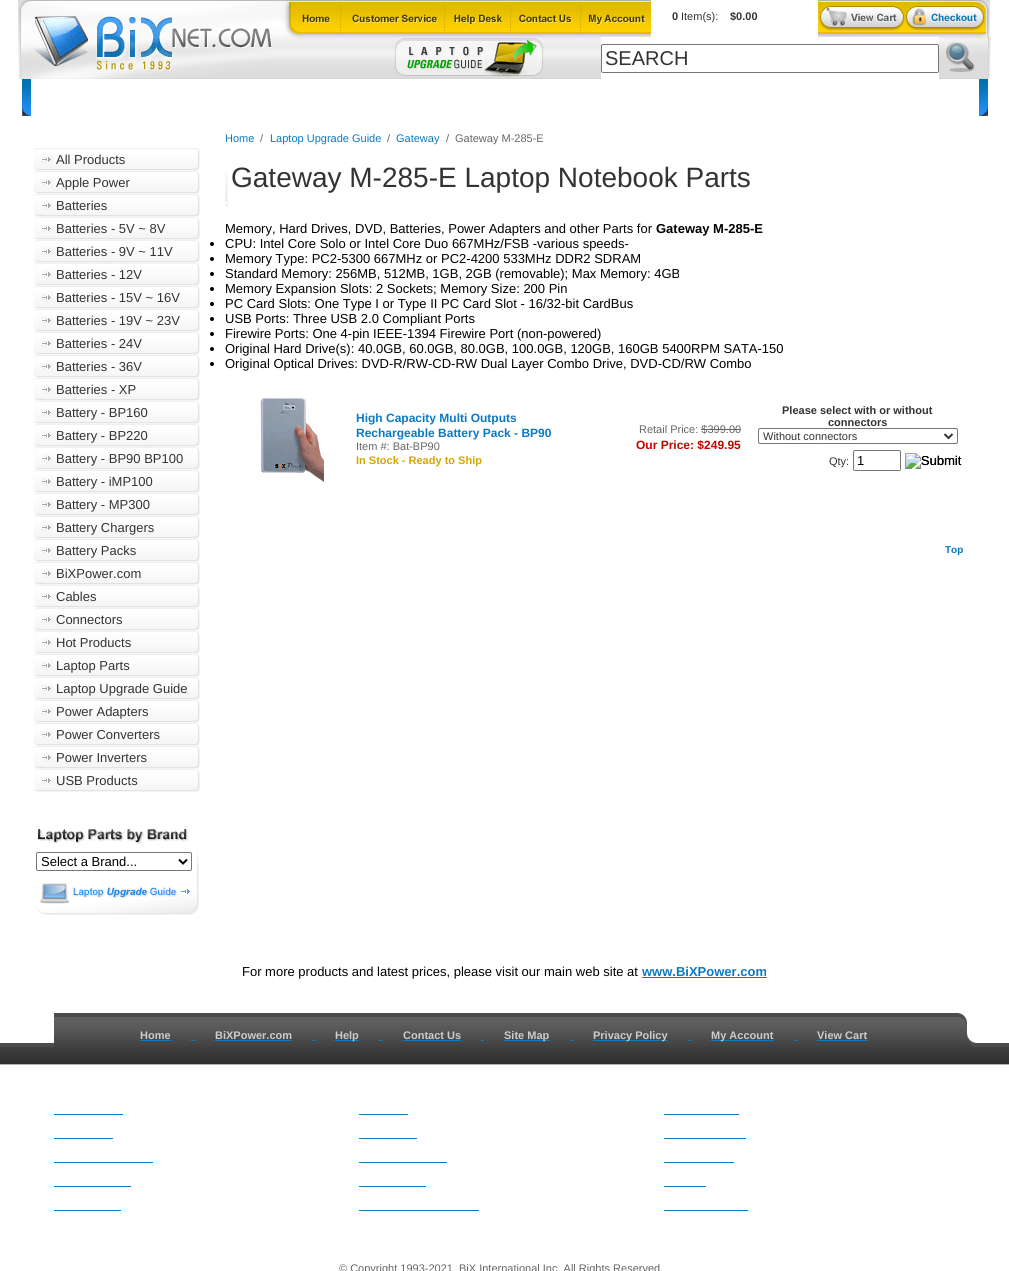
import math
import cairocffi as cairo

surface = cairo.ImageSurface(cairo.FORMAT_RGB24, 1009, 1271)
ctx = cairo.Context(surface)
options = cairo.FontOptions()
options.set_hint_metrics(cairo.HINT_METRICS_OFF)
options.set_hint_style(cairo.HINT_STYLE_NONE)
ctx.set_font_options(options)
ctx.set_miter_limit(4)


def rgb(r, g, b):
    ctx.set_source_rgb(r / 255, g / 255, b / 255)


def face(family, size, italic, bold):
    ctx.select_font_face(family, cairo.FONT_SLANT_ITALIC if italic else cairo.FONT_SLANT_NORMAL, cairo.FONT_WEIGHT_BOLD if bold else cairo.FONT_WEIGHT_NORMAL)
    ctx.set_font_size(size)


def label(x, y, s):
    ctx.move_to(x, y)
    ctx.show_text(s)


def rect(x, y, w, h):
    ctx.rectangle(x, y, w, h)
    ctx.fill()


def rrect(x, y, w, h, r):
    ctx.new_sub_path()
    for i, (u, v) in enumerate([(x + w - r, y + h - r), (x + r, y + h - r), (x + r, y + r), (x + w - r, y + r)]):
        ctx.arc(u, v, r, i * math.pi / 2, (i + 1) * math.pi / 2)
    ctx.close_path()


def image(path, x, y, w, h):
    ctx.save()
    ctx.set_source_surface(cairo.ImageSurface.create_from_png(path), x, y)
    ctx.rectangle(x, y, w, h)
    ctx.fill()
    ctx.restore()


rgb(255, 255, 255)
ctx.paint()
image('image0.png', 18, 0, 258, 79)
image('image1.png', 276, 0, 375, 37)
face('Liberation Sans', 11, 0, 1)
rgb(51, 51, 51)
label(672, 20, '0')
face('Liberation Sans', 11, 0, 0)
label(681, 20, 'Item(s):')
face('Liberation Sans', 11, 0, 1)
label(730, 20, '$0.00')
image('image2.png', 818, 0, 86, 37)
image('image3.png', 904, 0, 86, 37)
image('image4.png', 276, 37, 325, 42)
rrect(601.5, 44.5, 337, 28, 1.5)
rgb(118, 118, 118)
ctx.set_line_width(1)
ctx.stroke()
face('Liberation Sans', 20, 0, 0)
rgb(51, 51, 51)
label(605, 65, 'SEARCH')
image('image5.png', 939, 37, 52, 42)
image('image6.png', 22, 79, 9, 37)
image('image7.png', 979, 79, 9, 37)
image('image8.png', 34, 148, 166, 23)
face('Liberation Sans', 13, 0, 0)
label(56, 164, 'All Products')
image('image8.png', 34, 171, 166, 23)
label(56, 187, 'Apple Power')
image('image8.png', 34, 194, 166, 23)
label(56, 210, 'Batteries')
image('image8.png', 34, 217, 166, 23)
label(56, 233, 'Batteries - 5V ~ 8V')
image('image8.png', 34, 240, 166, 23)
label(56, 256, 'Batteries - 9V ~ 11V')
image('image8.png', 34, 263, 166, 23)
label(56, 279, 'Batteries - 12V')
image('image8.png', 34, 286, 166, 23)
label(56, 302, 'Batteries - 15V ~ 16V')
image('image8.png', 34, 309, 166, 23)
label(56, 325, 'Batteries - 19V ~ 23V')
image('image8.png', 34, 332, 166, 23)
label(56, 348, 'Batteries - 24V')
image('image8.png', 34, 355, 166, 23)
label(56, 371, 'Batteries - 36V')
image('image8.png', 34, 378, 166, 23)
label(56, 394, 'Batteries - XP')
image('image8.png', 34, 401, 166, 23)
label(56, 417, 'Battery - BP160')
image('image8.png', 34, 424, 166, 23)
label(56, 440, 'Battery - BP220')
image('image8.png', 34, 447, 166, 23)
label(56, 463, 'Battery - BP90 BP100')
image('image8.png', 34, 470, 166, 23)
label(56, 486, 'Battery - iMP100')
image('image8.png', 34, 493, 166, 23)
label(56, 509, 'Battery - MP300')
image('image8.png', 34, 516, 166, 23)
label(56, 532, 'Battery Chargers')
image('image8.png', 34, 539, 166, 23)
label(56, 555, 'Battery Packs')
image('image8.png', 34, 562, 166, 23)
label(56, 578, 'BiXPower.com')
image('image8.png', 34, 585, 166, 23)
label(56, 601, 'Cables')
image('image8.png', 34, 608, 166, 23)
label(56, 624, 'Connectors')
image('image8.png', 34, 631, 166, 23)
label(56, 647, 'Hot Products')
image('image8.png', 34, 654, 166, 23)
label(56, 670, 'Laptop Parts')
image('image8.png', 34, 677, 166, 23)
label(56, 693, 'Laptop Upgrade Guide')
image('image8.png', 34, 700, 166, 23)
label(56, 716, 'Power Adapters')
image('image8.png', 34, 723, 166, 23)
label(56, 739, 'Power Converters')
image('image8.png', 34, 746, 166, 23)
label(56, 762, 'Power Inverters')
image('image8.png', 34, 769, 166, 23)
label(56, 785, 'USB Products')
image('image9.png', 38, 829, 161, 48)
rrect(36.5, 852.5, 155, 18, 1.5)
rgb(118, 118, 118)
ctx.stroke()
ctx.new_path()
ctx.move_to(179, 859.5)
ctx.line_to(183, 863.5)
ctx.line_to(187, 859.5)
rgb(0, 0, 0)
ctx.set_line_width(2)
ctx.stroke()
label(41, 866, 'Select a Brand...')
image('image10.png', 36, 877, 163, 38)
face('Liberation Sans', 11, 0, 0)
rgb(11, 121, 195)
label(225, 142, 'Home')
rgb(102, 102, 102)
label(260, 142, '/')
rgb(11, 121, 195)
label(270, 142, 'Laptop Upgrade Guide')
rgb(102, 102, 102)
label(387, 142, '/')
rgb(11, 121, 195)
label(396, 142, 'Gateway')
rgb(102, 102, 102)
label(446, 142, '/')
label(455, 142, 'Gateway M-285-E')
image('image11.png', 225, 172, 3, 34)
face('Liberation Sans', 28, 0, 0)
rgb(51, 51, 51)
label(231, 187, 'Gateway M-285-E Laptop Notebook Parts')
face('Liberation Sans', 13, 0, 0)
rgb(0, 0, 0)
label(225, 233, 'Memory, Hard Drives, DVD, Batteries, Power Adapters and other Parts for')
face('Liberation Sans', 13, 0, 1)
label(656, 233, 'Gateway M-285-E')
ctx.new_path()
ctx.arc(212, 244, 2, 0, 2 * math.pi)
ctx.fill()
face('Liberation Sans', 13, 0, 0)
label(225, 248, 'CPU: Intel Core Solo or Intel Core Duo 667MHz/FSB -various speeds-')
ctx.new_path()
ctx.arc(212, 259, 2, 0, 2 * math.pi)
ctx.fill()
label(225, 263, 'Memory Type: PC2-5300 667MHz or PC2-4200 533MHz DDR2 SDRAM')
ctx.new_path()
ctx.arc(212, 274, 2, 0, 2 * math.pi)
ctx.fill()
label(225, 278, 'Standard Memory: 256MB, 512MB, 1GB, 2GB (removable); Max Memory: 4GB')
ctx.new_path()
ctx.arc(212, 289, 2, 0, 2 * math.pi)
ctx.fill()
label(225, 293, 'Memory Expansion Slots: 2 Sockets; Memory Size: 200 Pin')
ctx.new_path()
ctx.arc(212, 304, 2, 0, 2 * math.pi)
ctx.fill()
label(225, 308, 'PC Card Slots: One Type I or Type II PC Card Slot - 16/32-bit CardBus')
ctx.new_path()
ctx.arc(212, 319, 2, 0, 2 * math.pi)
ctx.fill()
label(225, 323, 'USB Ports: Three USB 2.0 Compliant Ports')
ctx.new_path()
ctx.arc(212, 334, 2, 0, 2 * math.pi)
ctx.fill()
label(225, 338, 'Firewire Ports: One 4-pin IEEE-1394 Firewire Port (non-powered)')
ctx.new_path()
ctx.arc(212, 349, 2, 0, 2 * math.pi)
ctx.fill()
label(225, 353, 'Original Hard Drive(s): 40.0GB, 60.0GB, 80.0GB, 100.0GB, 120GB, 160GB 5400RPM SATA-150')
ctx.new_path()
ctx.arc(212, 364, 2, 0, 2 * math.pi)
ctx.fill()
label(225, 368, 'Original Optical Drives: DVD-R/RW-CD-RW Dual Layer Combo Drive, DVD-CD/RW Combo')
image('image12.png', 260, 398, 64, 84)
face('Liberation Sans', 12, 0, 1)
rgb(11, 121, 195)
label(356, 422, 'High Capacity Multi Outputs')
label(356, 437, 'Rechargeable Battery Pack - BP90')
face('Liberation Sans', 11, 0, 0)
rgb(102, 102, 102)
label(356, 450, 'Item #: Bat-BP90')
face('Liberation Sans', 11, 0, 1)
rgb(213, 167, 0)
label(356, 464, 'In Stock - Ready to Ship')
face('Liberation Sans', 11, 0, 0)
rgb(102, 102, 102)
label(639, 433, 'Retail Price: $399.00')
rect(701, 429, 40, 1)
face('Liberation Sans', 12, 0, 1)
rgb(204, 0, 0)
label(636, 449, 'Our Price: $249.95')
face('Liberation Sans', 11, 0, 1)
rgb(51, 51, 51)
label(782, 414, 'Please select with or without')
label(828, 426, 'connectors')
rrect(758.5, 428.5, 199, 15, 1.5)
rgb(118, 118, 118)
ctx.set_line_width(1)
ctx.stroke()
ctx.new_path()
ctx.move_to(944.5, 434)
ctx.line_to(948.5, 438)
ctx.line_to(952.5, 434)
rgb(51, 51, 51)
ctx.set_line_width(2)
ctx.stroke()
face('Liberation Sans', 11, 0, 0)
label(763, 440, 'Without connectors')
label(829, 465, 'Qty:')
rrect(853.5, 450.5, 47, 20, 1.5)
rgb(118, 118, 118)
ctx.set_line_width(1)
ctx.stroke()
face('Liberation Sans', 13, 0, 0)
rgb(0, 0, 0)
label(857, 465, '1')
image('image13.png', 905, 453, 56, 16)
label(921, 465, 'Submit')
face('Liberation Sans', 10, 0, 1)
rgb(11, 121, 195)
label(945, 553, 'Top')
face('Liberation Sans', 13, 0, 0)
rgb(0, 0, 0)
label(242, 976, 'For more products and latest prices, please visit our main web site at')
face('Liberation Sans', 13, 0, 1)
rgb(11, 121, 195)
label(642, 976, 'www.BiXPower.com')
rect(642, 977, 125, 1)
image('image14.png', 0, 1043, 1009, 22)
image('image15.png', 54, 1013, 901, 34)
face('Liberation Sans', 11, 0, 1)
rgb(204, 204, 204)
label(140, 1039, 'Home')
rgb(11, 121, 195)
rect(140, 1040, 31, 1)
rgb(204, 204, 204)
label(215, 1039, 'BiXPower.com')
rgb(11, 121, 195)
rect(215, 1040, 77, 1)
rect(335, 1040, 24, 1)
rgb(204, 204, 204)
label(335, 1039, 'Help')
label(403, 1039, 'Contact Us')
rgb(11, 121, 195)
rect(403, 1040, 58, 1)
rect(504, 1040, 46, 1)
rgb(204, 204, 204)
label(504, 1039, 'Site Map')
rgb(11, 121, 195)
rect(593, 1040, 75, 1)
rgb(204, 204, 204)
label(593, 1039, 'Privacy Policy')
rgb(11, 121, 195)
rect(711, 1040, 63, 1)
rgb(204, 204, 204)
label(711, 1039, 'My Account')
label(817, 1039, 'View Cart')
rgb(11, 121, 195)
rect(817, 1040, 51, 1)
rect(191, 1040, 4, 1)
rect(312, 1040, 3, 1)
rect(379, 1040, 4, 1)
rect(481, 1040, 3, 1)
rect(570, 1040, 3, 1)
rect(688, 1040, 3, 1)
rect(794, 1040, 3, 1)
image('image16.png', 955, 1013, 21, 34)
rect(54, 1114, 69, 1)
rect(54, 1138, 59, 1)
rect(54, 1162, 99, 1)
rect(54, 1186, 77, 1)
rect(54, 1210, 67, 1)
rect(359, 1114, 49, 1)
rect(359, 1138, 58, 1)
rect(359, 1162, 88, 1)
rect(359, 1186, 67, 1)
rect(359, 1210, 120, 1)
rect(664, 1114, 75, 1)
rect(664, 1138, 82, 1)
rect(664, 1162, 70, 1)
rect(664, 1186, 42, 1)
rect(664, 1210, 84, 1)
face('Liberation Sans', 11, 0, 0)
rgb(102, 102, 102)
label(339, 1272, '© Copyright 1993-2021, BiX International Inc. All Rights Reserved.')
surface.write_to_png('render.png')
